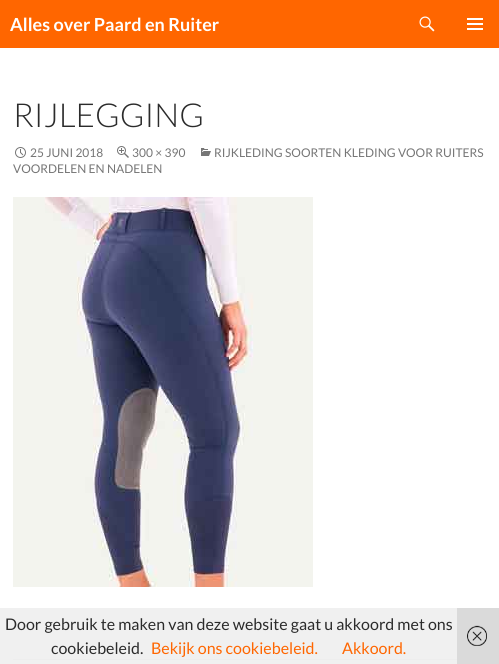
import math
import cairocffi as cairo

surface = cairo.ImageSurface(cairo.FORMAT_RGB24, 499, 664)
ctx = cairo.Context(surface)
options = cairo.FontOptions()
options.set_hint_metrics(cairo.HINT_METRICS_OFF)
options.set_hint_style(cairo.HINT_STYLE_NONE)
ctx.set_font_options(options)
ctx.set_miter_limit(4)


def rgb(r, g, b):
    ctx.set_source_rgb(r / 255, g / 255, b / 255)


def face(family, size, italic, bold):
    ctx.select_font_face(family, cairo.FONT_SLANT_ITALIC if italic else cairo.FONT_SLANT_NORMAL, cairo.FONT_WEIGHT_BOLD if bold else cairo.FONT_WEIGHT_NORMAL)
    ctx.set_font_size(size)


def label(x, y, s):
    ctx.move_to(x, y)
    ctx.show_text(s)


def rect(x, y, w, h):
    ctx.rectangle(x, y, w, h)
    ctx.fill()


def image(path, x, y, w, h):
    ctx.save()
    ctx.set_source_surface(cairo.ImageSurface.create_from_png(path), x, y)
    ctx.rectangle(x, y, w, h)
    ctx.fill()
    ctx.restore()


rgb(255, 255, 255)
ctx.paint()
rgb(240, 240, 240)
rect(0, 608, 457, 56)
rgb(218, 218, 218)
rect(457, 608, 42, 56)
rgb(255, 102, 0)
rect(0, 0, 499, 48)
face('Lato', 18, 0, 1)
rgb(255, 255, 255)
label(10, 31, 'Alles over Paard en Ruiter')
image('image0.png', 419, 16, 16, 16)
image('image1.png', 467, 18, 16, 12)
face('Lato Light', 33, 0, 0)
rgb(43, 43, 43)
label(13, 127, 'RIJLEGGING')
image('image2.png', 201, 148, 10, 8)
face('Lato', 12, 0, 0)
rgb(118, 118, 118)
label(214, 157, 'RIJKLEDING SOORTEN KLEDING VOOR RUITERS')
label(13, 173, 'VOORDELEN EN NADELEN')
image('image3.png', 15, 147, 11, 11)
label(30, 157, '25 JUNI 2018')
image('image4.png', 117, 146, 12, 12)
label(132, 157, '300 × 390')
image('image5.png', 13, 197, 300, 390)
rgb(237, 237, 237)
rect(13, 659, 444, 1)
face('Lato', 16, 0, 0)
rgb(43, 43, 43)
label(5, 630, 'Door gebruik te maken van deze website gaat u akkoord met ons')
label(51, 654, 'cookiebeleid.')
rgb(255, 102, 0)
label(151, 654, 'Bekijk ons cookiebeleid.')
label(342, 654, 'Akkoord.')
image('image6.png', 467, 625, 20, 21)
surface.write_to_png('render.png')
